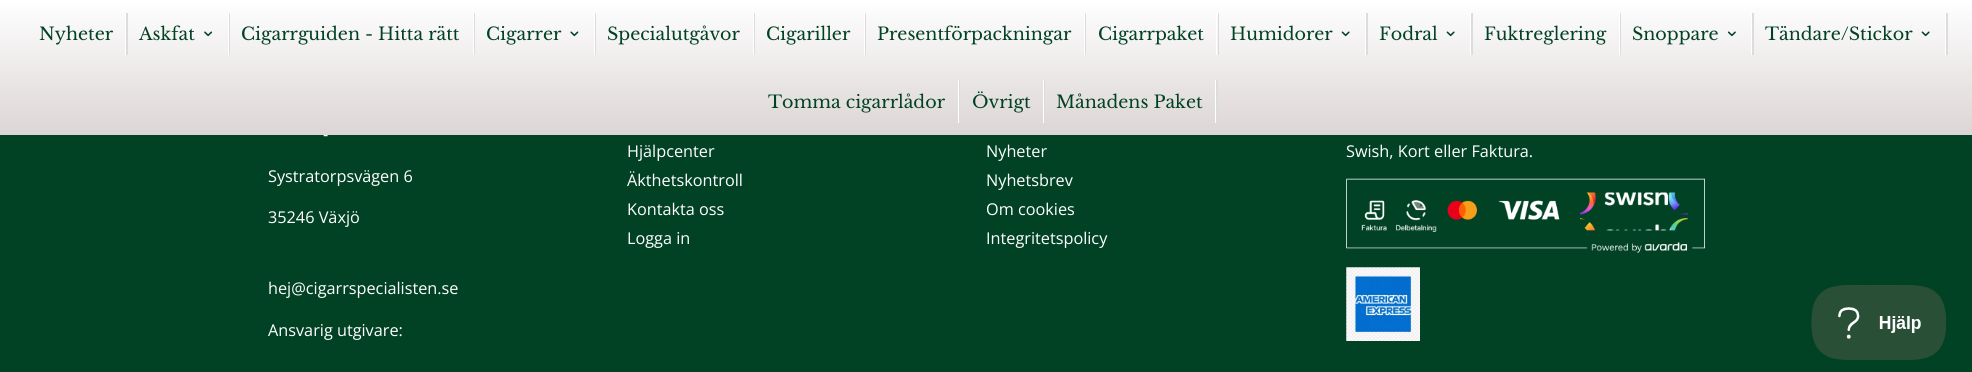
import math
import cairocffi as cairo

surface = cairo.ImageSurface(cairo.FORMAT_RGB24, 1972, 372)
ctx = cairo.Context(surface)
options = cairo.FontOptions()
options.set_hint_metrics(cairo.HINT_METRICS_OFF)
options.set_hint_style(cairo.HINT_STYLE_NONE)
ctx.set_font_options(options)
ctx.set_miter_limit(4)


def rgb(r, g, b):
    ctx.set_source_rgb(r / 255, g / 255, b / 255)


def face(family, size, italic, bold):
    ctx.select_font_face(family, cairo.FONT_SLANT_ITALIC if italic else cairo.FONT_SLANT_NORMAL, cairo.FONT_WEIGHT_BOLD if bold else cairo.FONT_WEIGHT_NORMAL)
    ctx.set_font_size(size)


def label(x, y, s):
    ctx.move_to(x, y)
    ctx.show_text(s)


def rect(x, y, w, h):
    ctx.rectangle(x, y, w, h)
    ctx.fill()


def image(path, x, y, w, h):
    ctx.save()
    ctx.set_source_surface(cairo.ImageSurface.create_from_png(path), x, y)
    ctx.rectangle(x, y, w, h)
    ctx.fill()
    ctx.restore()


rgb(1, 66, 36)
ctx.paint()
gradient = cairo.LinearGradient(986, 0, 986, 135)
gradient.add_color_stop_rgba(0, 1, 1, 1, 1)
gradient.add_color_stop_rgba(1, 0.863, 0.835, 0.835, 1)
ctx.set_source(gradient)
rect(0, 0, 1972, 135)
rgb(220, 220, 220)
rect(126, 13, 2, 42)
rgb(255, 255, 255)
rect(125, 13, 1, 42)
face('Libre Baskerville', 17.5, 0, 0)
rgb(1, 66, 36)
label(39, 40, 'Nyheter')
rgb(220, 220, 220)
rect(229, 13, 1, 42)
rgb(255, 255, 255)
rect(228, 13, 1, 42)
rgb(1, 66, 36)
label(139, 40, 'Askfat')
image('image0.png', 204, 31, 9, 6)
rgb(220, 220, 220)
rect(474, 13, 1, 42)
rgb(255, 255, 255)
rect(473, 13, 1, 42)
rgb(1, 66, 36)
label(241, 40, 'Cigarrguiden - Hitta rätt')
rgb(220, 220, 220)
rect(595, 13, 1, 42)
rgb(255, 255, 255)
rect(594, 13, 1, 42)
rgb(1, 66, 36)
label(486, 40, 'Cigarrer')
image('image1.png', 570, 31, 9, 6)
rgb(220, 220, 220)
rect(754, 13, 1, 42)
rgb(255, 255, 255)
rect(753, 13, 1, 42)
rgb(1, 66, 36)
label(607, 40, 'Specialutgåvor')
rgb(220, 220, 220)
rect(865, 13, 1, 42)
rgb(255, 255, 255)
rect(864, 13, 1, 42)
rgb(1, 66, 36)
label(766, 40, 'Cigariller')
rgb(220, 220, 220)
rect(1085, 13, 1, 42)
rgb(255, 255, 255)
rect(1084, 13, 1, 42)
rgb(1, 66, 36)
label(877, 40, 'Presentförpackningar')
rgb(220, 220, 220)
rect(1218, 13, 1, 42)
rgb(255, 255, 255)
rect(1216, 13, 1, 42)
rgb(1, 66, 36)
label(1098, 40, 'Cigarrpaket')
rgb(220, 220, 220)
rect(1366, 13, 2, 42)
rgb(255, 255, 255)
rect(1365, 13, 1, 42)
rgb(1, 66, 36)
label(1230, 40, 'Humidorer')
image('image2.png', 1341, 31, 9, 6)
rgb(220, 220, 220)
rect(1471, 13, 2, 42)
rgb(255, 255, 255)
rect(1470, 13, 1, 42)
rgb(1, 66, 36)
label(1379, 40, 'Fodral')
image('image2.png', 1446, 31, 9, 6)
rgb(220, 220, 220)
rect(1620, 13, 1, 42)
rgb(255, 255, 255)
rect(1619, 13, 1, 42)
rgb(1, 66, 36)
label(1484, 40, 'Fuktreglering')
rgb(220, 220, 220)
rect(1752, 13, 2, 42)
rgb(255, 255, 255)
rect(1751, 13, 1, 42)
rgb(1, 66, 36)
label(1632, 40, 'Snoppare')
image('image3.png', 1727, 31, 9, 6)
rgb(220, 220, 220)
rect(1946, 13, 2, 42)
rgb(255, 255, 255)
rect(1945, 13, 1, 42)
rgb(1, 66, 36)
label(1765, 40, 'Tändare/Stickor')
image('image2.png', 1921, 31, 9, 6)
rgb(220, 220, 220)
ctx.new_path()
ctx.move_to(758, 122)
ctx.line_to(758, 123)
ctx.line_to(960, 123)
ctx.line_to(960, 80)
ctx.line_to(959, 80)
ctx.line_to(959, 122)
ctx.close_path()
ctx.fill()
rgb(255, 255, 255)
rect(958, 80, 1, 43)
rgb(1, 66, 36)
label(768, 108, 'Tomma cigarrlådor')
rgb(220, 220, 220)
ctx.new_path()
ctx.move_to(960, 122)
ctx.line_to(960, 123)
ctx.line_to(1045, 123)
ctx.line_to(1045, 80)
ctx.line_to(1044, 80)
ctx.line_to(1044, 122)
ctx.close_path()
ctx.fill()
rgb(255, 255, 255)
rect(1043, 80, 1, 43)
rgb(1, 66, 36)
label(972, 108, 'Övrigt')
rgb(220, 220, 220)
ctx.new_path()
ctx.move_to(1045, 122)
ctx.line_to(1045, 123)
ctx.line_to(1218, 123)
ctx.line_to(1218, 80)
ctx.line_to(1216, 80)
ctx.line_to(1216, 122)
ctx.close_path()
ctx.fill()
rgb(255, 255, 255)
rect(1215, 80, 1, 43)
rgb(1, 66, 36)
label(1056, 108, 'Månadens Paket')
face('Open Sans', 16.25, 0, 0)
rgb(255, 255, 255)
label(323, 140, '-')
label(268, 182, 'Systratorpsvägen 6')
label(268, 223, '35246 Växjö')
label(268, 294, 'hej@cigarrspecialisten.se')
label(268, 336, 'Ansvarig utgivare:')
label(627, 157, 'Hjälpcenter')
label(627, 186, 'Äkthetskontroll')
label(627, 215, 'Kontakta oss')
label(627, 244, 'Logga in')
label(986, 157, 'Nyheter')
label(986, 186, 'Nyhetsbrev')
label(986, 215, 'Om cookies')
label(986, 244, 'Integritetspolicy')
label(1346, 157, 'Swish, Kort eller Faktura.')
image('image4.png', 1346, 178, 359, 75)
image('image5.png', 1346, 267, 74, 74)
image('image6.png', 1811, 285, 135, 75)
surface.write_to_png('render.png')
